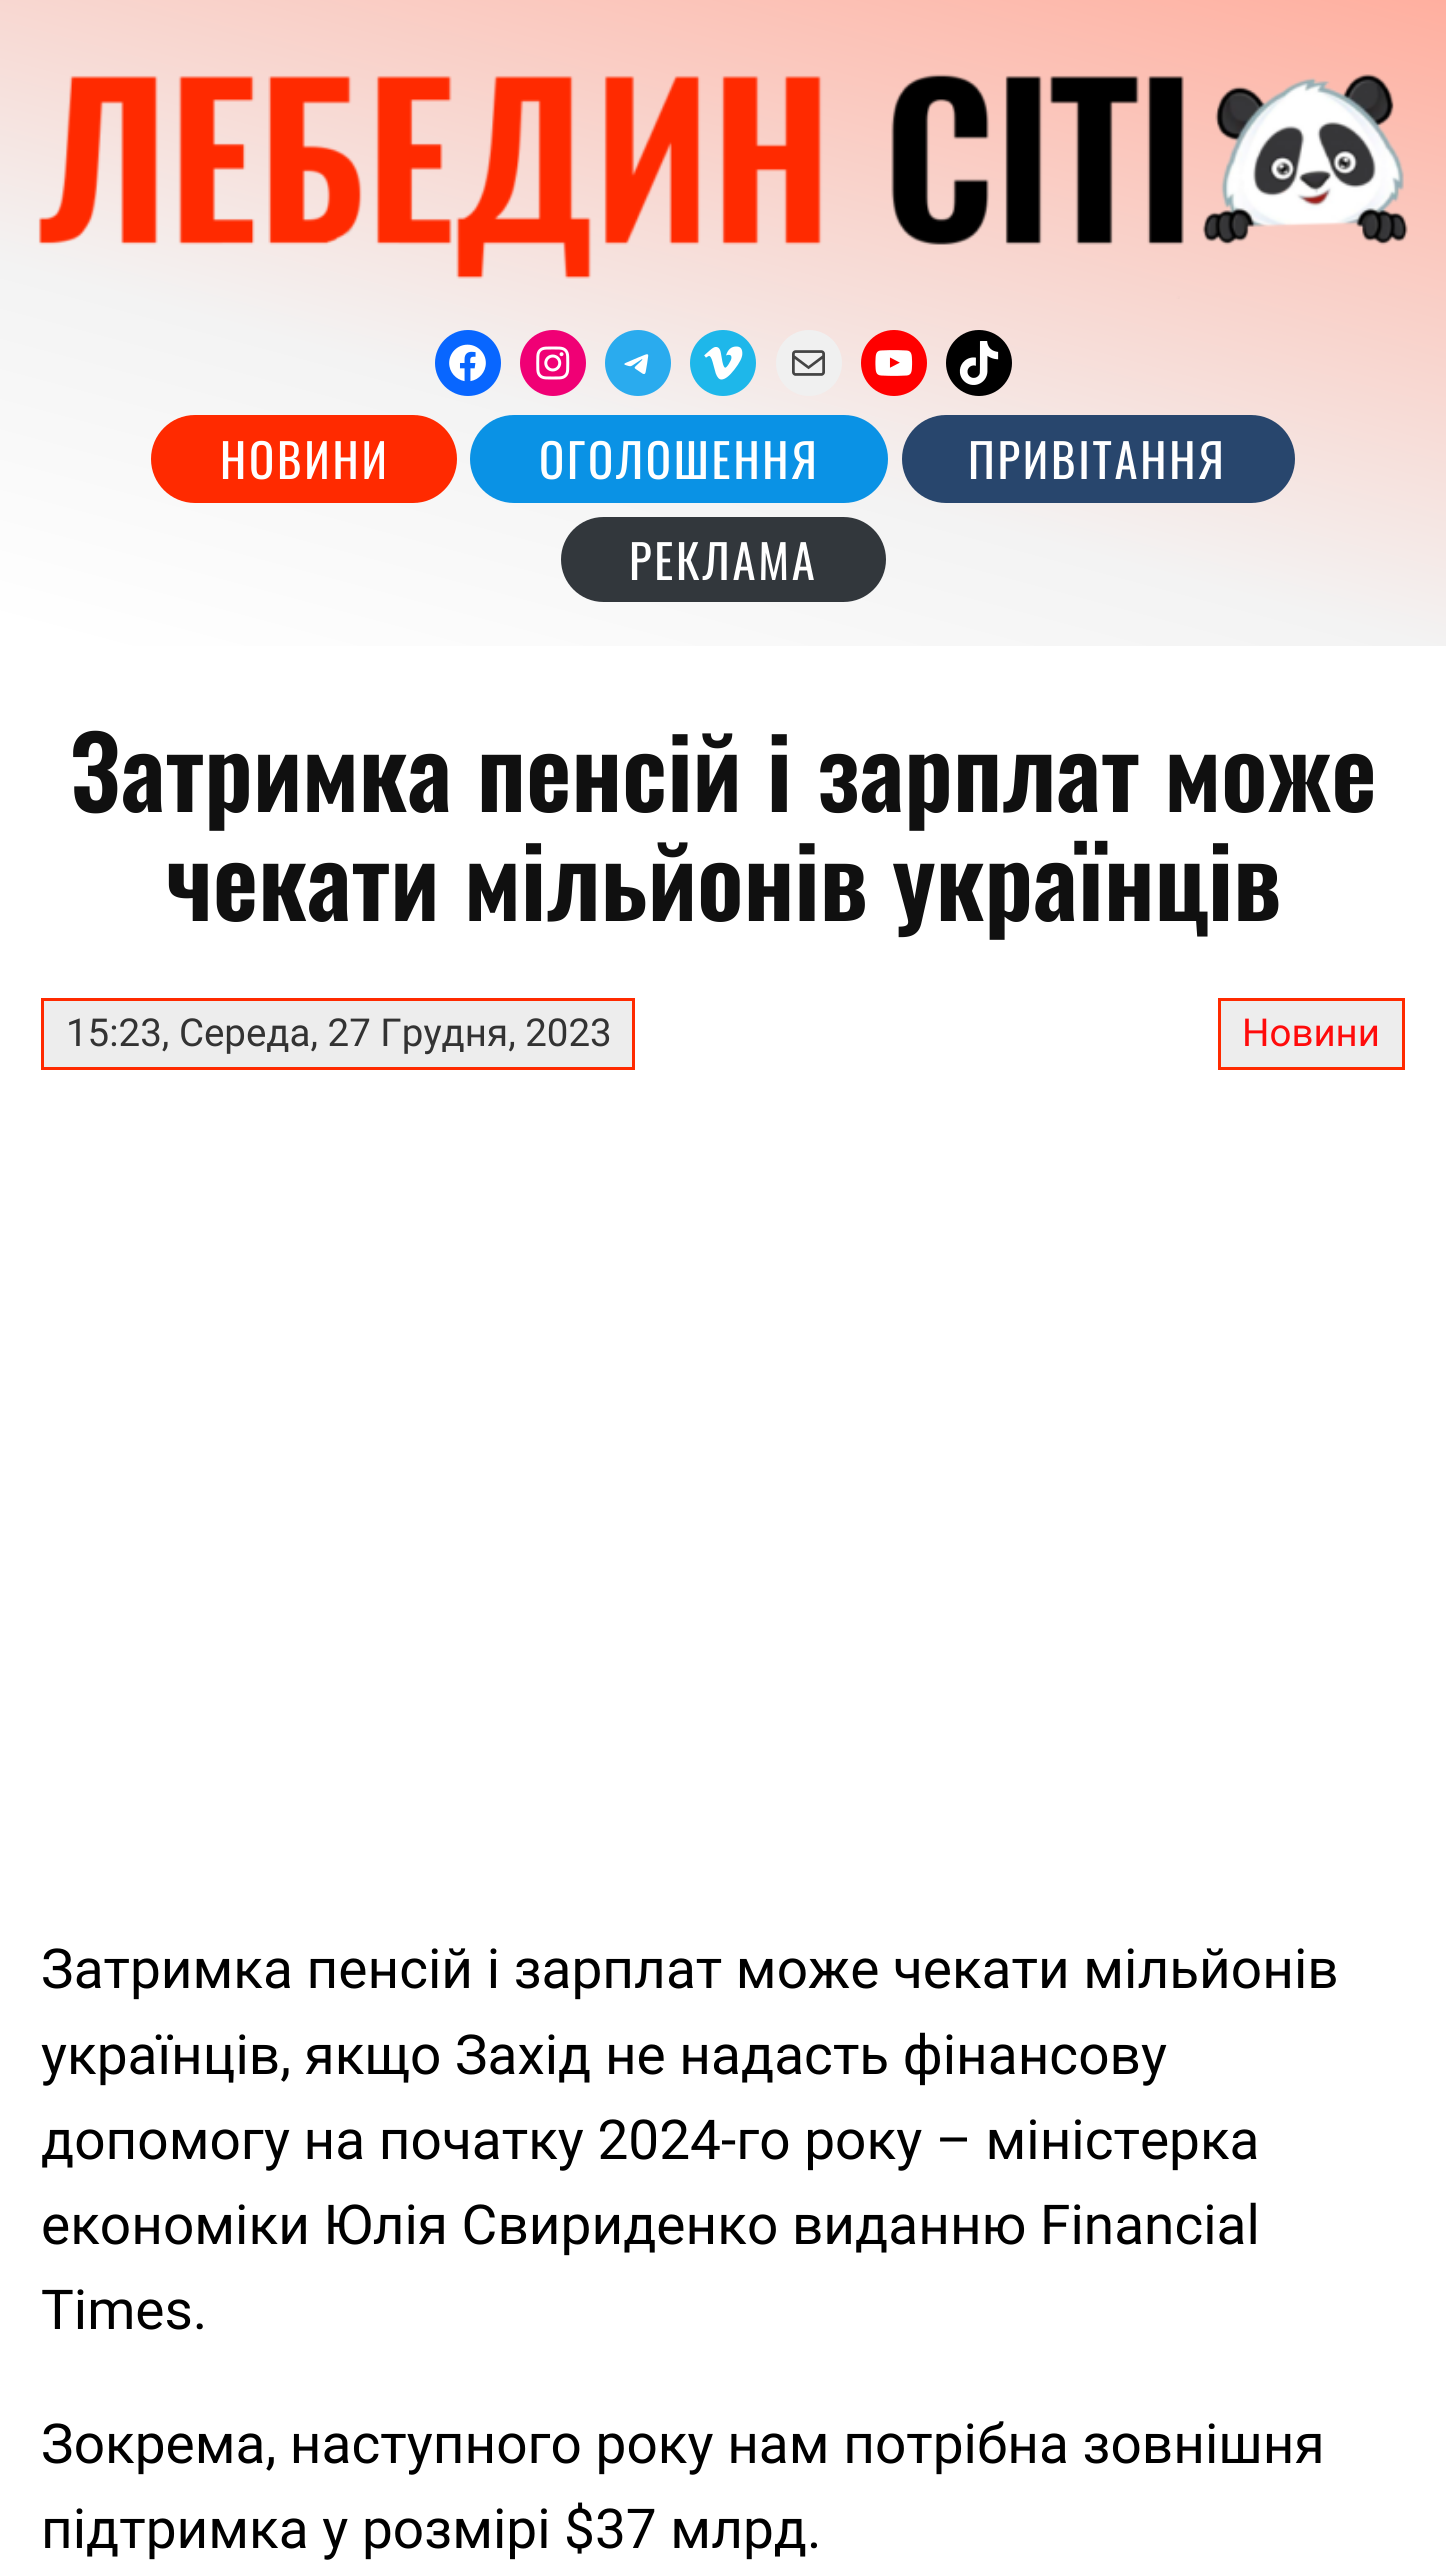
import math
import cairocffi as cairo

surface = cairo.ImageSurface(cairo.FORMAT_RGB24, 1446, 2570)
ctx = cairo.Context(surface)
options = cairo.FontOptions()
options.set_hint_metrics(cairo.HINT_METRICS_OFF)
options.set_hint_style(cairo.HINT_STYLE_NONE)
ctx.set_font_options(options)
ctx.set_miter_limit(4)


def rgb(r, g, b):
    ctx.set_source_rgb(r / 255, g / 255, b / 255)


def face(family, size, italic, bold):
    ctx.select_font_face(family, cairo.FONT_SLANT_ITALIC if italic else cairo.FONT_SLANT_NORMAL, cairo.FONT_WEIGHT_BOLD if bold else cairo.FONT_WEIGHT_NORMAL)
    ctx.set_font_size(size)


def label(x, y, s):
    ctx.move_to(x, y)
    ctx.show_text(s)


def tracked(x, y, s, letter, word):
    ctx.move_to(x, y)
    for ch in s:
        ctx.show_text(ch)
        ctx.rel_move_to(letter + word * (ch == ' '), 0)


def rect(x, y, w, h):
    ctx.rectangle(x, y, w, h)
    ctx.fill()


def rrect(x, y, w, h, r):
    ctx.new_sub_path()
    for i, (u, v) in enumerate([(x + w - r, y + h - r), (x + r, y + h - r), (x + r, y + r), (x + w - r, y + r)]):
        ctx.arc(u, v, r, i * math.pi / 2, (i + 1) * math.pi / 2)
    ctx.close_path()


def image(path, x, y, w, h):
    ctx.save()
    ctx.set_source_surface(cairo.ImageSurface.create_from_png(path), x, y)
    ctx.rectangle(x, y, w, h)
    ctx.fill()
    ctx.restore()


rgb(255, 255, 255)
ctx.paint()
gradient = cairo.LinearGradient(594, 805, 852, -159)
gradient.add_color_stop_rgba(0.02, 1, 1, 1, 1)
gradient.add_color_stop_rgba(0.37, 0.953, 0.953, 0.953, 1)
gradient.add_color_stop_rgba(1, 1, 0.686, 0.624, 1)
ctx.set_source(gradient)
rect(0, 0, 1446, 646)
image('image0.png', 38, 74, 1370, 225)
rgb(8, 102, 255)
ctx.arc(468, 363, 33, 0, 2 * math.pi)
ctx.fill()
image('image1.png', 449, 344, 37, 38)
rgb(240, 0, 117)
ctx.arc(553, 363, 33, 0, 2 * math.pi)
ctx.fill()
image('image2.png', 536, 346, 34, 34)
rgb(42, 171, 238)
ctx.arc(638, 363, 33, 0, 2 * math.pi)
ctx.fill()
image('image3.png', 624, 354, 25, 20)
rgb(30, 183, 234)
ctx.arc(723, 363, 33, 0, 2 * math.pi)
ctx.fill()
image('image4.png', 704, 346, 39, 34)
rgb(240, 240, 240)
ctx.arc(809, 363, 33, 0, 2 * math.pi)
ctx.fill()
image('image5.png', 792, 350, 33, 26)
rgb(255, 0, 0)
ctx.arc(894, 363, 33, 0, 2 * math.pi)
ctx.fill()
image('image6.png', 875, 350, 38, 26)
rgb(0, 0, 0)
ctx.arc(979, 363, 33, 0, 2 * math.pi)
ctx.fill()
image('image7.png', 959, 341, 40, 44)
rgb(255, 42, 0)
rrect(151, 415, 306, 88, 44)
ctx.fill()
face('Oswald', 46.75, 0, 0)
rgb(255, 255, 255)
tracked(220, 479, 'НОВИНИ', 2.75, 0)
rgb(10, 146, 229)
rrect(470, 415, 418, 88, 44)
ctx.fill()
rgb(255, 255, 255)
tracked(539, 479, 'ОГОЛОШЕННЯ', 2.75, 0)
rgb(40, 70, 109)
rrect(902, 415, 393, 88, 44)
ctx.fill()
rgb(255, 255, 255)
tracked(968, 479, 'ПРИВІТАННЯ', 2.75, 0)
rgb(50, 55, 60)
rrect(561, 517, 325, 85, 42.5)
ctx.fill()
rgb(255, 255, 255)
tracked(629, 580, 'РЕКЛАМА', 2.75, 0)
face('Oswald SemiBold', 99, 0, 0)
rgb(16, 16, 16)
label(70, 812, 'Затримка пенсій і зарплат може')
label(165, 921, 'чекати мільйонів українців')
rgb(237, 237, 237)
ctx.rectangle(42.5, 999.5, 591, 69)
ctx.fill_preserve()
rgb(255, 42, 0)
ctx.set_line_width(3)
ctx.stroke()
face('Roboto', 38.5, 0, 0)
rgb(51, 51, 51)
label(66, 1046, '15:23, Середа, 27 Грудня, 2023')
rgb(237, 237, 237)
ctx.rectangle(1219.5, 999.5, 184, 69)
ctx.fill_preserve()
rgb(255, 42, 0)
ctx.stroke()
rgb(255, 11, 11)
label(1242, 1046, 'Новини')
face('Roboto', 55, 0, 0)
rgb(0, 0, 0)
label(41, 1988, 'Затримка пенсій і зарплат може чекати мільйонів')
label(41, 2074, 'українців, якщо Захід не надасть фінансову')
label(41, 2159, 'допомогу на початку 2024-го року – міністерка')
label(41, 2244, 'економіки Юлія Свириденко виданню Financial')
label(41, 2329, 'Times.')
label(41, 2463, 'Зокрема, наступного року нам потрібна зовнішня')
label(41, 2548, 'підтримка у розмірі $37 млрд.')
surface.write_to_png('render.png')
